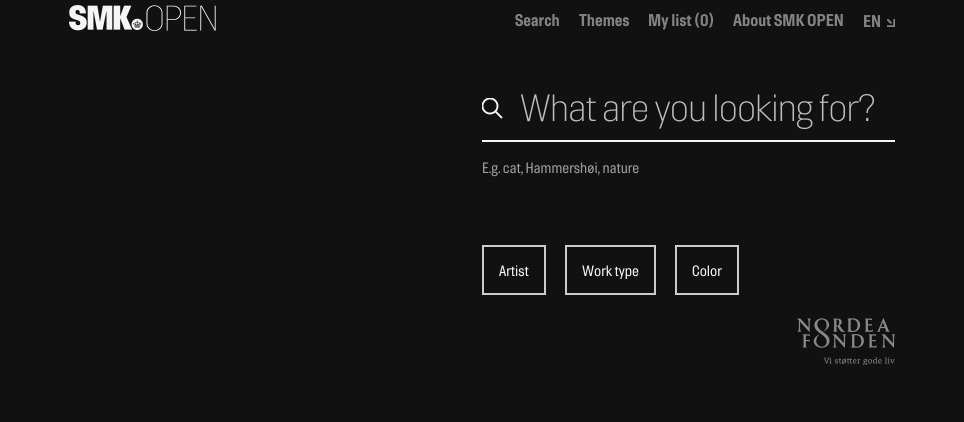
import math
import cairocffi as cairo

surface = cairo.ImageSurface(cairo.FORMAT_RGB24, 964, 422)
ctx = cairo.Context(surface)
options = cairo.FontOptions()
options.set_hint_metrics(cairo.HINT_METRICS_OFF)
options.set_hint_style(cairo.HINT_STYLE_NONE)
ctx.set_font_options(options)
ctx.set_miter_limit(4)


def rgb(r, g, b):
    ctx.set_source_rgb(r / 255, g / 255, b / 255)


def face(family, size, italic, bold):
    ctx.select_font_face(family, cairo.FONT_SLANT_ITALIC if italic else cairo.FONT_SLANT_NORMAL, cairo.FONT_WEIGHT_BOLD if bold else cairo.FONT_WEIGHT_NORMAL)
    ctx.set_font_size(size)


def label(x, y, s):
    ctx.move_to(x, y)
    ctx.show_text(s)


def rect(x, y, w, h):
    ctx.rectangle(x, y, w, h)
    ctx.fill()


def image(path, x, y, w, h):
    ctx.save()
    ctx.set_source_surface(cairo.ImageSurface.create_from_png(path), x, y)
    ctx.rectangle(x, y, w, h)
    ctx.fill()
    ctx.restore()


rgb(17, 17, 17)
ctx.paint()
image('image0.png', 69, 5, 147, 26)
face('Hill', 17, 0, 1)
rgb(131, 131, 131)
label(515, 26, 'Search')
label(579, 26, 'Themes')
label(648, 26, 'My list (0)')
label(733, 26, 'About SMK OPEN')
label(863, 27, 'EN')
ctx.save()
ctx.rectangle(887, 19, 8, 8)
ctx.clip()
ctx.new_path()
ctx.move_to(887, 26)
ctx.line_to(894, 26)
ctx.line_to(894, 19)
ctx.move_to(888, 20)
ctx.line_to(894, 26)
ctx.set_line_cap(cairo.LINE_CAP_SQUARE)
ctx.stroke()
ctx.new_path()
ctx.move_to(887, 24.5)
ctx.line_to(892.5, 24.5)
ctx.line_to(892.5, 19)
rgb(17, 17, 17)
ctx.set_line_width(1.6)
ctx.stroke()
ctx.restore()
ctx.save()
ctx.rectangle(482, 98, 21, 21)
ctx.clip()
ctx.arc(490, 106, 7.5, 0, 2 * math.pi)
rgb(245, 245, 245)
ctx.set_line_width(1.9)
ctx.stroke()
ctx.restore()
ctx.new_path()
ctx.move_to(495, 111)
ctx.line_to(502, 118)
ctx.close_path()
rgb(245, 245, 245)
ctx.set_line_width(1.9)
ctx.set_line_cap(cairo.LINE_CAP_SQUARE)
ctx.stroke()
face('Hill Light', 38, 0, 0)
rgb(188, 188, 188)
label(520, 121, 'What are you looking for?')
rgb(245, 245, 245)
rect(482, 140, 413, 2)
face('Hill', 15, 0, 0)
rgb(158, 158, 158)
label(482, 173, 'E.g. cat, Hammershøi, nature')
ctx.rectangle(483, 246, 62, 48)
rgb(204, 204, 204)
ctx.set_line_width(2)
ctx.set_line_cap(cairo.LINE_CAP_BUTT)
ctx.stroke()
rgb(245, 245, 245)
label(499, 276, 'Artist')
ctx.rectangle(566, 246, 89, 48)
rgb(204, 204, 204)
ctx.stroke()
rgb(245, 245, 245)
label(582, 276, 'Work type')
ctx.rectangle(676, 246, 62, 48)
rgb(204, 204, 204)
ctx.stroke()
rgb(245, 245, 245)
label(692, 276, 'Color')
image('image1.png', 797, 318, 98, 47)
surface.write_to_png('render.png')
